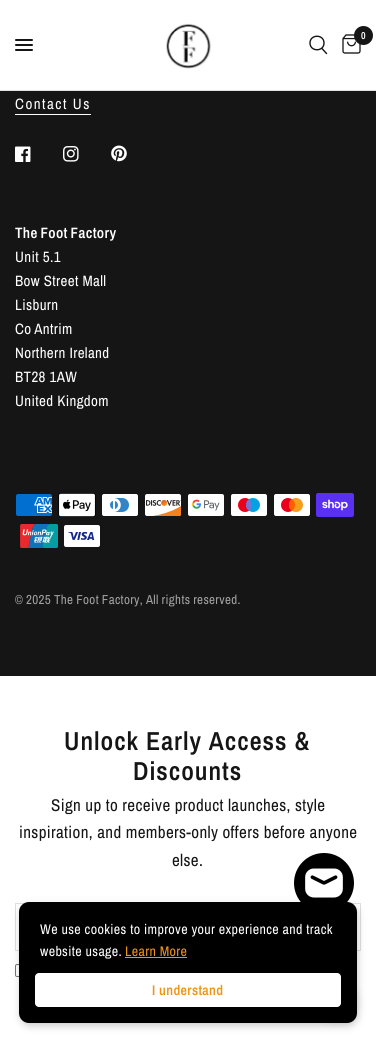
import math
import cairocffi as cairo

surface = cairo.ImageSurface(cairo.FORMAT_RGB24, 376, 1038)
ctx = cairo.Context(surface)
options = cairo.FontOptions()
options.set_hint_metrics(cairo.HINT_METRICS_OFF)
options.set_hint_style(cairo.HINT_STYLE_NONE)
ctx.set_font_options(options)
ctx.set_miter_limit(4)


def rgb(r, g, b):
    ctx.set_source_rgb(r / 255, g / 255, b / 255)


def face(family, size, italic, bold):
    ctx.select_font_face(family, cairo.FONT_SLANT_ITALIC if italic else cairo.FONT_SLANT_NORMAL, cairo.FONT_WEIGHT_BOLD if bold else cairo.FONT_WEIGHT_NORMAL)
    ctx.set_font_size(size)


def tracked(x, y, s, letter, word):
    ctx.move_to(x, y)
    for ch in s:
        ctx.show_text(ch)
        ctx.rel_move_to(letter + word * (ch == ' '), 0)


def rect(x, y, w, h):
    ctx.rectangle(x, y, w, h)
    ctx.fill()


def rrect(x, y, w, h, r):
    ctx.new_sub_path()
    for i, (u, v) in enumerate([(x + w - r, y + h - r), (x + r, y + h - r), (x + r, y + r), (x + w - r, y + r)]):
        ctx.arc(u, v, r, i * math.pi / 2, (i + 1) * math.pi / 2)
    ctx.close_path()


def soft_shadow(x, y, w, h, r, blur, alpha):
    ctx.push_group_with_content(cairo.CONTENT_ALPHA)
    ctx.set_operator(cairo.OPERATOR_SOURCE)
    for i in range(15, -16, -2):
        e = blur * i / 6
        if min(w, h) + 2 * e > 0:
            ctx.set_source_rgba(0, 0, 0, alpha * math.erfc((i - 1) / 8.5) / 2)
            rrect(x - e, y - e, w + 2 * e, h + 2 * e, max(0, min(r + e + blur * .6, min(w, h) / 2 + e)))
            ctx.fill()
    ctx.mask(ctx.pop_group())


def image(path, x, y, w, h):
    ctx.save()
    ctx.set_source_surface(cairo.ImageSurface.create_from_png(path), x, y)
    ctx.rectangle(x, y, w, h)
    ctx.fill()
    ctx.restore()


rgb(255, 255, 255)
ctx.paint()
rgb(226, 226, 226)
rect(0, 90, 376, 1)
image('image0.png', 166, 23, 45, 46)
ctx.new_path()
ctx.move_to(322, 48.5)
ctx.line_to(326.5, 53.5)
ctx.move_to(324, 43)
ctx.curve_to(324, 52, 310, 52, 310, 43)
ctx.curve_to(310, 34, 324, 34, 324, 43)
ctx.close_path()
rgb(21, 21, 21)
ctx.set_line_width(1.4)
ctx.set_line_cap(cairo.LINE_CAP_ROUND)
ctx.set_line_join(cairo.LINE_JOIN_ROUND)
ctx.stroke()
image('image1.png', 342, 34, 19, 20)
ctx.arc(363.5, 35.5, 9.5, 0, 2 * math.pi)
ctx.fill()
face('Archivo Narrow SemiBold', 10, 0, 0)
rgb(255, 255, 255)
tracked(361, 39, '0', 0.35, 0)
rgb(21, 21, 21)
rrect(15, 39, 18, 2, 1)
ctx.fill()
rrect(15, 44, 18, 2, 1)
ctx.fill()
rrect(15, 49, 18, 2, 1)
ctx.fill()
rect(0, 91, 376, 585)
face('Archivo Narrow', 15, 0, 0)
rgb(255, 255, 255)
tracked(15, 109, 'Contact Us', 1.5, 0)
rect(15, 114, 76, 1)
image('image2.png', 15, 146, 16, 16)
image('image3.png', 63, 146, 16, 16)
image('image4.png', 111, 145, 16, 17)
face('Archivo Narrow SemiBold', 15, 0, 0)
tracked(15, 238, 'The Foot Factory', 0.35, -1)
face('Archivo Narrow', 15, 0, 0)
tracked(15, 262, 'Unit 5.1', 0.35, 0)
tracked(15, 286, 'Bow Street Mall', 0.35, 0)
tracked(15, 310, 'Lisburn', 0.35, 0)
tracked(15, 334, 'Co Antrim', 0.35, -1)
tracked(15, 358, 'Northern Ireland', 0.35, 0)
tracked(15, 382, 'BT28 1AW', 0.35, 0)
tracked(15, 406, 'United Kingdom', 0.35, 0)
image('image5.png', 16, 494, 36, 22)
image('image6.png', 58, 493, 38, 24)
image('image7.png', 102, 494, 36, 22)
image('image8.png', 145, 494, 36, 22)
image('image9.png', 188, 494, 36, 22)
image('image10.png', 231, 494, 36, 22)
image('image11.png', 274, 494, 36, 22)
image('image12.png', 316, 493, 38, 24)
image('image13.png', 20, 524, 38, 24)
image('image14.png', 64, 525, 36, 22)
face('Archivo Narrow', 13, 0, 0)
rgb(161, 161, 161)
tracked(15, 604, '© 2025 The Foot Factory, All rights reserved.', 0.35, -0.5)
face('Archivo Narrow SemiBold', 26, 0, 0)
rgb(21, 21, 21)
tracked(64, 750, 'Unlock Early Access &', 1, 0)
tracked(133, 780, 'Discounts', 1, 0)
face('Archivo Narrow', 17, 0, 0)
tracked(51, 811, 'Sign up to receive product launches, style', 0.35, 0)
tracked(19, 838, 'inspiration, and members-only offers before anyone', 0.35, 0)
tracked(172, 866, 'else.', 0.35, 0)
ctx.rectangle(15.5, 903.5, 345, 47)
rgb(222, 222, 222)
ctx.set_line_width(1)
ctx.set_line_cap(cairo.LINE_CAP_BUTT)
ctx.set_line_join(cairo.LINE_JOIN_MITER)
ctx.stroke()
rrect(15.5, 964.5, 12, 12, 1.5)
rgb(118, 118, 118)
ctx.stroke()
rgb(0, 0, 0)
soft_shadow(20, 905, 338, 121, 10, 4, 0.2)
soft_shadow(320, 984, 36, 36, 18, 5, 0.15)
rgb(0, 0, 0)
rrect(19, 902, 338, 121, 10)
ctx.fill()
ctx.arc(324, 883, 30, 0, 2 * math.pi)
ctx.fill()
image('image15.png', 305, 868, 38, 30)
face('Archivo Narrow', 14, 0, 0)
rgb(255, 255, 255)
tracked(40, 934, 'We use cookies to improve your experience and track', 0.35, 0)
tracked(40, 956, 'website usage.', 0.35, 0)
rgb(239, 148, 25)
tracked(125, 956, 'Learn More', 0.35, 0)
rect(125, 957, 62, 1)
rgb(255, 255, 255)
rrect(35, 973, 306, 34, 4)
ctx.fill()
face('Archivo Narrow SemiBold', 14, 0, 0)
rgb(239, 148, 25)
tracked(152, 995, 'I understand', 0.35, 0)
surface.write_to_png('render.png')
